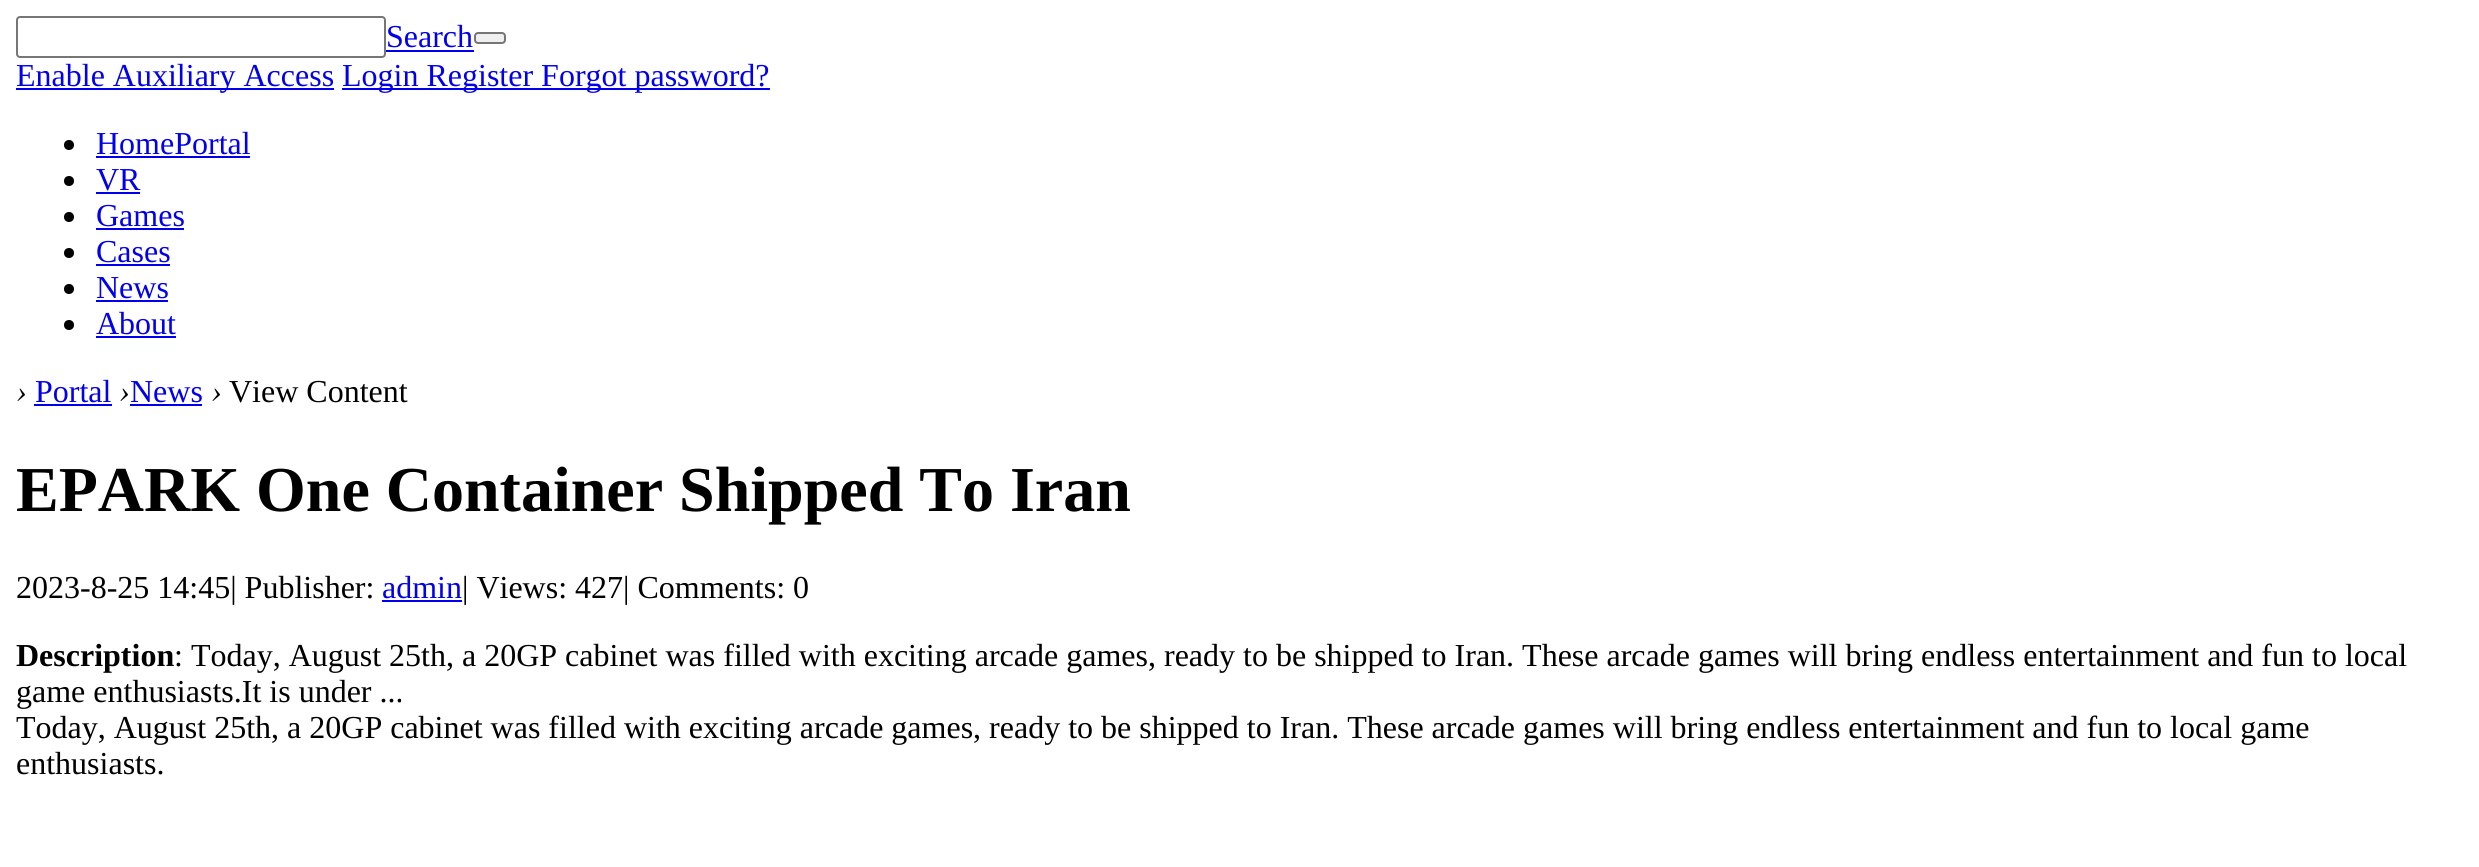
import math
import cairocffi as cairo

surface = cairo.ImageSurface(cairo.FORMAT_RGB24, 2479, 867)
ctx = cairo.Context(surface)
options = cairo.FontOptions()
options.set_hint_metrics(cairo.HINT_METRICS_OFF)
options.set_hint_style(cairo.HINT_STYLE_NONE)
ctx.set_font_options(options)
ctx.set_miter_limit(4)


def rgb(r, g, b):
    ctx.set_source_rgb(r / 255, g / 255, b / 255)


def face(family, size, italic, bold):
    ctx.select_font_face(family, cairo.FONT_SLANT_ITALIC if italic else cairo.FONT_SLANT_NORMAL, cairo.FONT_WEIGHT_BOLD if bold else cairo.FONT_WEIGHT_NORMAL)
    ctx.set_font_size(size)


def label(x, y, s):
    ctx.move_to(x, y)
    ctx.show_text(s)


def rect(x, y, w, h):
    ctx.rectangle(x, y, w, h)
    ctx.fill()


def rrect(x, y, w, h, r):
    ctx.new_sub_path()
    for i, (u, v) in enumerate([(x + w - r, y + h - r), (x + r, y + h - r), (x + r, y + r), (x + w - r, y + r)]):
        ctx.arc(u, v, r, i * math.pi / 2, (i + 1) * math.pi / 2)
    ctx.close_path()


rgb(255, 255, 255)
ctx.paint()
rrect(17, 17, 368, 40, 3)
rgb(118, 118, 118)
ctx.stroke()
face('Liberation Serif', 32, 0, 0)
rgb(0, 0, 238)
label(386, 47, 'Search')
rect(386, 50, 88, 2)
rgb(239, 239, 239)
rrect(475, 33, 30, 10, 3)
ctx.fill_preserve()
rgb(118, 118, 118)
ctx.stroke()
rgb(0, 0, 238)
rect(16, 88, 318, 2)
label(16, 86, 'Enable Auxiliary Access')
rect(342, 88, 428, 2)
label(342, 86, 'Login Register Forgot password?')
rgb(0, 0, 0)
ctx.new_path()
ctx.arc(69, 145, 5, 0, 2 * math.pi)
ctx.fill()
rgb(0, 0, 238)
label(96, 154, 'HomePortal')
rect(96, 156, 154, 2)
rgb(0, 0, 0)
ctx.new_path()
ctx.arc(69, 181, 5, 0, 2 * math.pi)
ctx.fill()
rgb(0, 0, 238)
label(96, 190, 'VR')
rect(96, 192, 44, 2)
rgb(0, 0, 0)
ctx.new_path()
ctx.arc(69, 217, 5, 0, 2 * math.pi)
ctx.fill()
rgb(0, 0, 238)
label(96, 226, 'Games')
rect(96, 228, 88, 2)
rgb(0, 0, 0)
ctx.new_path()
ctx.arc(69, 253, 5, 0, 2 * math.pi)
ctx.fill()
rgb(0, 0, 238)
label(96, 262, 'Cases')
rect(96, 264, 74, 2)
rgb(0, 0, 0)
ctx.new_path()
ctx.arc(69, 289, 5, 0, 2 * math.pi)
ctx.fill()
rgb(0, 0, 238)
label(96, 298, 'News')
rect(96, 300, 72, 2)
rgb(0, 0, 0)
ctx.new_path()
ctx.arc(69, 325, 5, 0, 2 * math.pi)
ctx.fill()
rgb(0, 0, 238)
label(96, 334, 'About')
rect(96, 336, 80, 2)
face('Liberation Serif', 32, 1, 0)
rgb(0, 0, 0)
label(16, 402, '›')
face('Liberation Serif', 32, 0, 0)
rgb(0, 0, 238)
label(35, 402, 'Portal')
rect(34, 404, 78, 2)
face('Liberation Serif', 32, 1, 0)
rgb(0, 0, 0)
label(119, 402, '›')
face('Liberation Serif', 32, 0, 0)
rgb(0, 0, 238)
label(130, 402, 'News')
rect(130, 404, 72, 2)
face('Liberation Serif', 32, 1, 0)
rgb(0, 0, 0)
label(211, 402, '›')
face('Liberation Serif', 32, 0, 0)
label(229, 402, 'View Content')
face('Liberation Serif', 64, 0, 1)
label(16, 511, 'EPARK One Container Shipped To Iran')
face('Liberation Serif', 32, 0, 0)
label(16, 598, '2023-8-25 14:45| Publisher:')
rgb(0, 0, 238)
label(382, 598, 'admin')
rect(382, 600, 80, 2)
rgb(0, 0, 0)
label(462, 598, '| Views: 427| Comments: 0')
face('Liberation Serif', 32, 0, 1)
label(16, 666, 'Description')
face('Liberation Serif', 32, 0, 0)
label(174, 666, ': Today, August 25th, a 20GP cabinet was filled with exciting arcade games, ready to be shipped to Iran. These arcade games will bring endless entertainment and fun to local')
label(16, 702, 'game enthusiasts.It is under ...')
label(16, 738, 'Today, August 25th, a 20GP cabinet was filled with exciting arcade games, ready to be shipped to Iran. These arcade games will bring endless entertainment and fun to local game')
label(16, 774, 'enthusiasts.')
surface.write_to_png('render.png')
